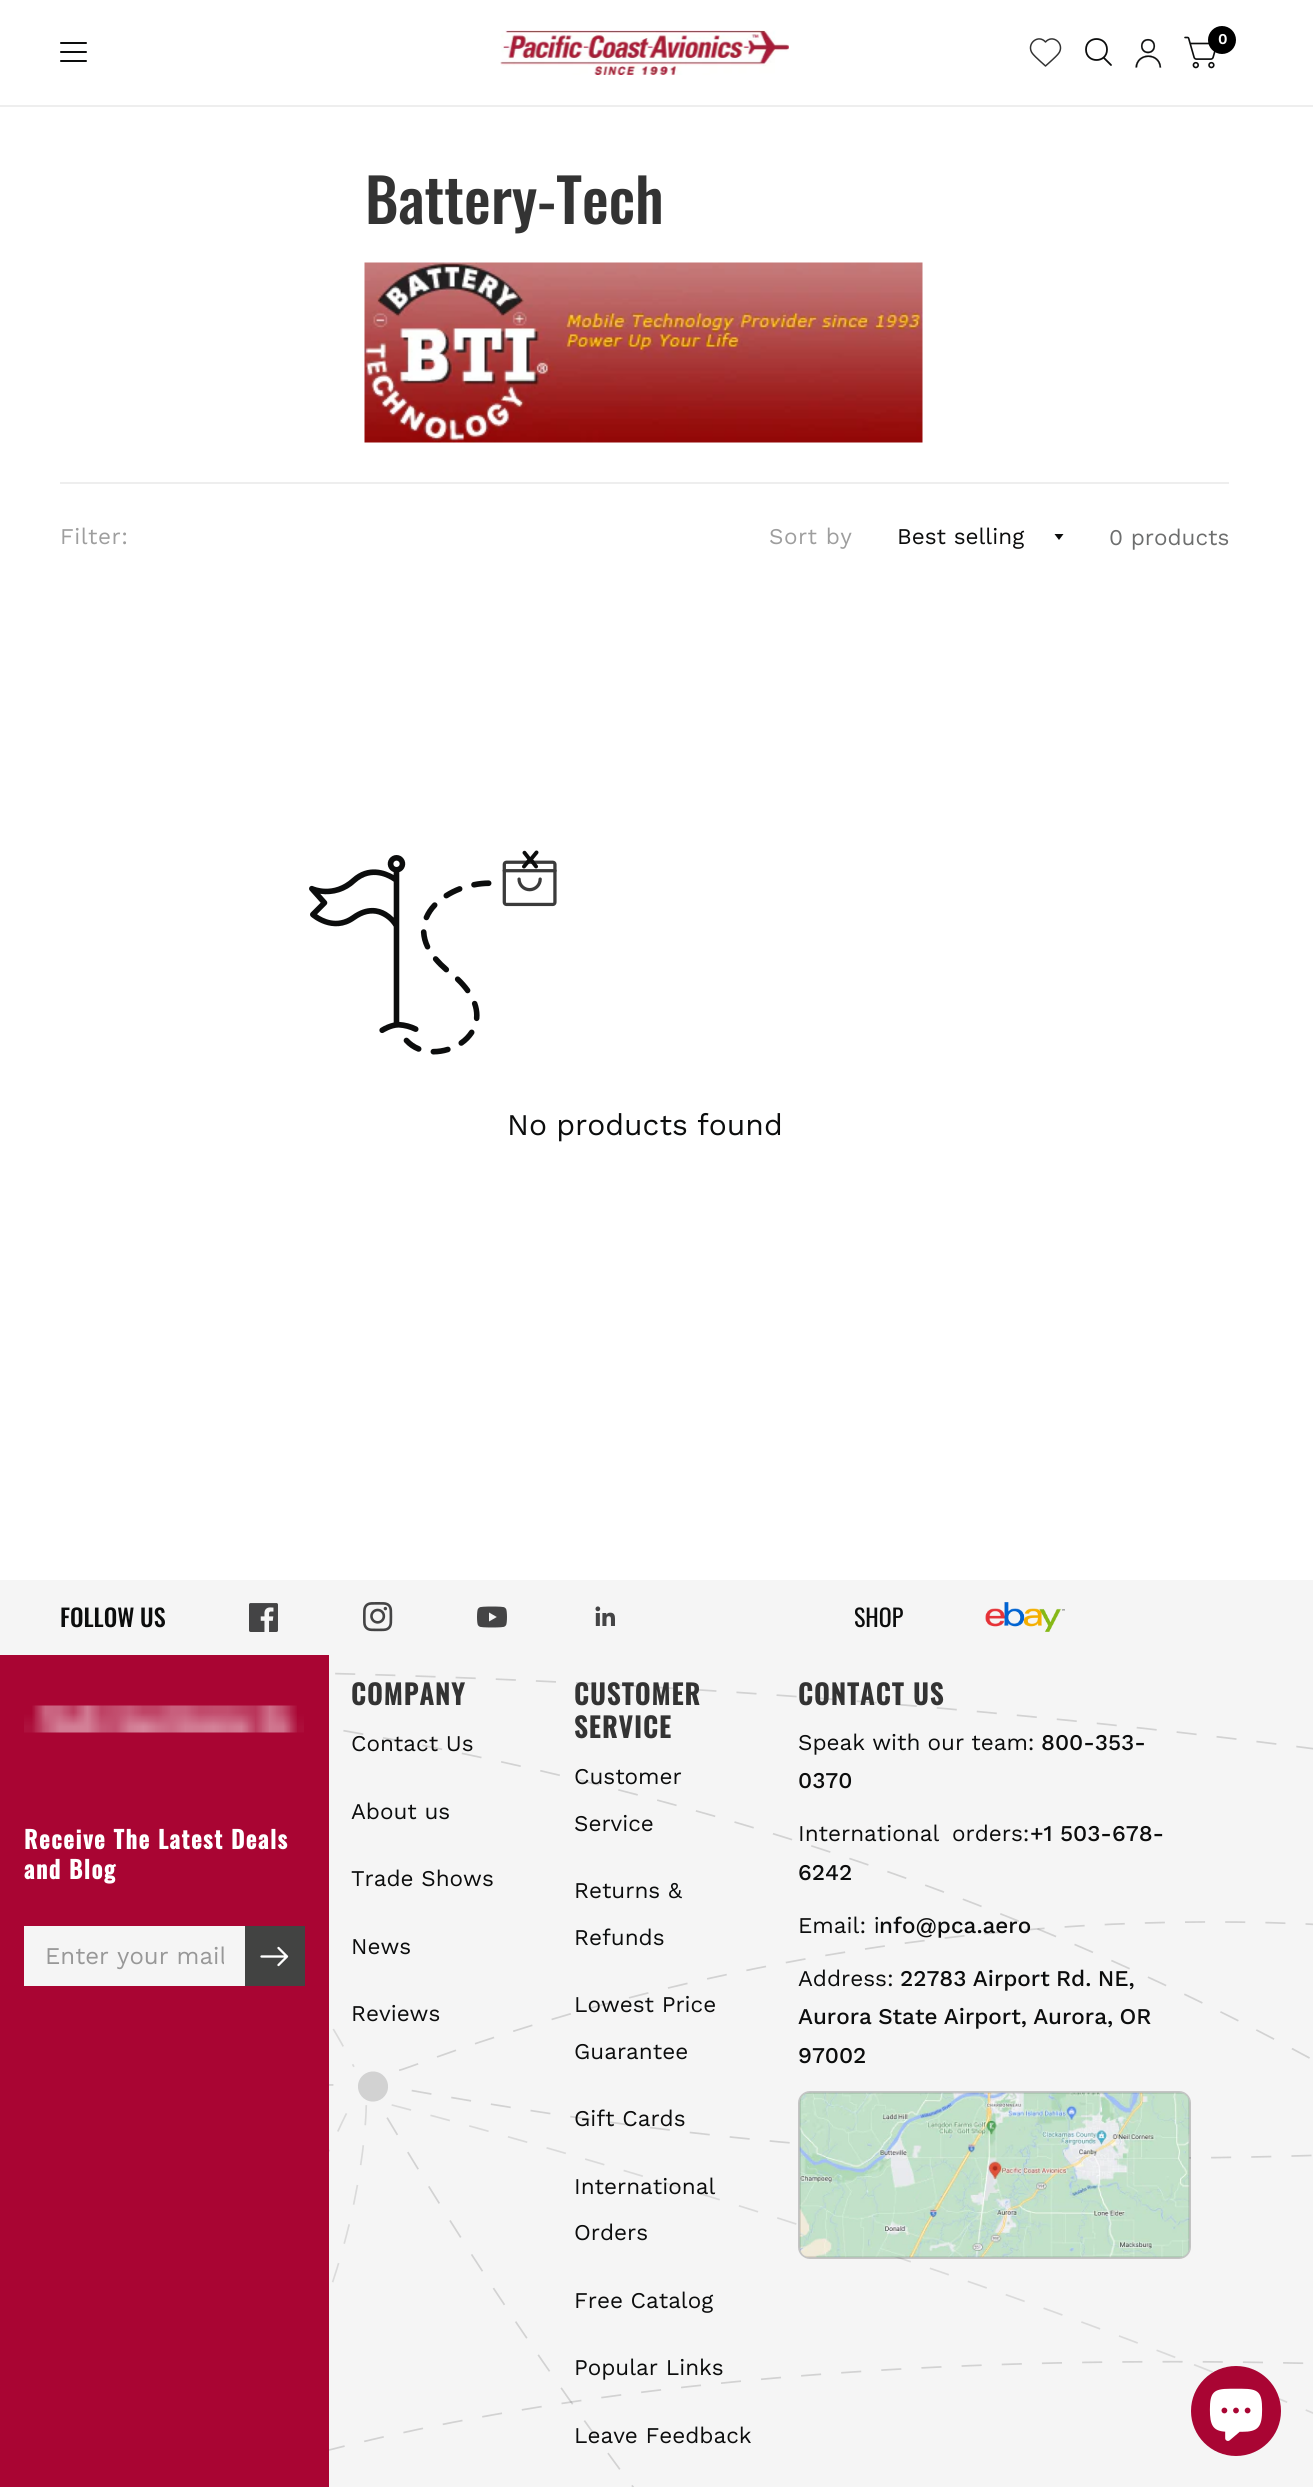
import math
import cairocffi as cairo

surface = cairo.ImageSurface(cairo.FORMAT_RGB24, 1313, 2487)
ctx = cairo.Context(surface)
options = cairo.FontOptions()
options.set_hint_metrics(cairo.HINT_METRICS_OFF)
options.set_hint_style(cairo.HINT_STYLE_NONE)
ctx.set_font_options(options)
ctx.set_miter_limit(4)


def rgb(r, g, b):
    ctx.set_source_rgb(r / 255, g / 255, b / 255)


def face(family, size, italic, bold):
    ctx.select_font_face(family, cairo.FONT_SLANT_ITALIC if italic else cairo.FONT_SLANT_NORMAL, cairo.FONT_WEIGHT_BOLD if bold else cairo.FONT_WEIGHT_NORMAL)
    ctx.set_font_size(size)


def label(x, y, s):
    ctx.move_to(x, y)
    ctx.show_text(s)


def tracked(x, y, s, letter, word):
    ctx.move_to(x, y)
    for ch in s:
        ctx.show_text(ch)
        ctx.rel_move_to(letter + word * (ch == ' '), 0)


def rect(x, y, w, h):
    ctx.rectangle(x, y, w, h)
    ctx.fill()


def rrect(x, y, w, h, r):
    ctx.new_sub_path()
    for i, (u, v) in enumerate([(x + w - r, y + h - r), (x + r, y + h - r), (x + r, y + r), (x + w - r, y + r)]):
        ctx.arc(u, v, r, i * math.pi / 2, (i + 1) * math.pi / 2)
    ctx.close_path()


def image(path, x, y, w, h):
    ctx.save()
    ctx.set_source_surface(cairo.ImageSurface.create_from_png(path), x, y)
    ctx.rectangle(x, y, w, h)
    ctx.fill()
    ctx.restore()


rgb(255, 255, 255)
ctx.paint()
rgb(238, 238, 238)
rect(0, 105, 1313, 2)
image('image0.png', 500, 30, 289, 45)
ctx.new_path()
ctx.move_to(1045.5, 42)
ctx.curve_to(1038.5, 34, 1027, 43, 1031.5, 52)
ctx.curve_to(1033.5, 55.5, 1037.5, 58.5, 1040.5, 61.5)
ctx.line_to(1045.5, 66)
ctx.line_to(1050.5, 61.5)
ctx.curve_to(1053.5, 58.5, 1057.5, 55.5, 1059.5, 52)
ctx.curve_to(1064, 43, 1052.5, 34, 1045.5, 42)
ctx.close_path()
rgb(51, 51, 51)
ctx.set_line_width(1.5)
ctx.set_line_cap(cairo.LINE_CAP_ROUND)
ctx.set_line_join(cairo.LINE_JOIN_ROUND)
ctx.stroke()
ctx.new_path()
ctx.move_to(1104, 58)
ctx.line_to(1111, 65)
ctx.move_to(1107, 49.5)
ctx.curve_to(1107, 63.5, 1086, 63.5, 1086, 49.5)
ctx.curve_to(1086, 35.5, 1107, 35.5, 1107, 49.5)
ctx.close_path()
rgb(12, 13, 13)
ctx.set_line_width(1.8)
ctx.stroke()
image('image1.png', 1135, 38, 27, 30)
image('image2.png', 1184, 36, 32, 33)
rgb(0, 0, 0)
ctx.arc(1222, 40, 14, 0, 2 * math.pi)
ctx.fill()
face('Work Sans SemiBold', 15, 0, 0)
rgb(255, 255, 255)
label(1218, 44, '0')
rgb(12, 13, 13)
rrect(60, 42, 27, 2, 1)
ctx.fill()
rrect(60, 51, 27, 2, 1)
ctx.fill()
rrect(60, 60, 27, 2, 1)
ctx.fill()
face('Oswald Medium', 60, 0, 0)
rgb(51, 51, 51)
label(365, 224, 'Battery-Tech')
image('image3.png', 364, 262, 559, 181)
rgb(238, 238, 238)
rect(60, 482, 1169, 2)
face('Work Sans', 22.5, 0, 0)
rgb(158, 158, 158)
tracked(60, 544, 'Filter:', 0.5, 0)
tracked(769, 544, 'Sort by', 0.5, 0)
rgb(12, 13, 13)
label(897, 544, 'Best selling')
ctx.new_path()
ctx.move_to(1054.5, 534)
ctx.line_to(1063.5, 534)
ctx.line_to(1059, 540)
ctx.close_path()
ctx.fill()
rgb(109, 110, 110)
label(1109, 545, '0 products')
image('image4.png', 309, 850, 248, 205)
face('Work Sans', 30, 0, 0)
rgb(12, 13, 13)
tracked(507, 1135, 'No products found', 0, -1)
rgb(245, 245, 245)
rect(0, 1580, 1313, 75)
face('Oswald Medium', 24, 0, 0)
rgb(12, 13, 13)
label(60, 1627, 'FOLLOW US')
image('image5.png', 249, 1603, 29, 29)
image('image6.png', 363, 1602, 30, 30)
image('image7.png', 477, 1606, 30, 22)
image('image8.png', 595, 1606, 20, 20)
face('Oswald', 24, 0, 0)
label(854, 1627, 'SHOP')
image('image9.png', 985, 1602, 80, 30)
rgb(245, 245, 245)
rect(329, 1655, 984, 832)
image('image10.png', 329, 1672, 984, 815)
rgb(169, 5, 51)
rect(0, 1655, 329, 832)
image('image11.png', 24, 1705, 280, 28)
face('Oswald', 24, 0, 1)
rgb(255, 255, 255)
tracked(24, 1849, 'Receive The Latest Deals', 1.5, 0)
tracked(24, 1879, 'and Blog', 1.5, 0)
rgb(245, 245, 245)
rect(24, 1926, 221, 60)
ctx.save()
ctx.rectangle(45, 1941, 179, 29)
ctx.clip()
face('Work Sans', 24, 0, 0)
rgb(152, 152, 152)
label(45, 1964, 'Enter your mail')
ctx.restore()
rgb(66, 67, 66)
rect(245, 1926, 60, 60)
ctx.new_path()
ctx.move_to(261.5, 1956.5)
ctx.line_to(284.5, 1956.5)
ctx.move_to(278.5, 1948)
ctx.line_to(287, 1956.5)
ctx.line_to(278.5, 1965)
rgb(255, 255, 255)
ctx.set_line_width(2.3)
ctx.stroke()
face('Oswald', 27, 0, 1)
rgb(51, 51, 51)
tracked(351, 1705, 'COMPANY', 1.5, 0)
face('Work Sans', 22.5, 0, 0)
rgb(12, 13, 13)
label(351, 1751, 'Contact Us')
label(351, 1819, 'About us')
label(351, 1886, 'Trade Shows')
label(351, 1954, 'News')
label(351, 2021, 'Reviews')
face('Oswald', 27, 0, 1)
rgb(51, 51, 51)
tracked(574, 1705, 'CUSTOMER', 1.5, 0)
tracked(574, 1738, 'SERVICE', 1.5, 0)
face('Work Sans', 22.5, 0, 0)
rgb(12, 13, 13)
label(574, 1784, 'Customer')
label(574, 1831, 'Service')
label(574, 1898, 'Returns &')
label(574, 1945, 'Refunds')
label(574, 2012, 'Lowest Price')
label(574, 2059, 'Guarantee')
label(574, 2126, 'Gift Cards')
label(574, 2194, 'International')
label(574, 2240, 'Orders')
label(574, 2308, 'Free Catalog')
label(574, 2375, 'Popular Links')
label(574, 2443, 'Leave Feedback')
face('Oswald', 27, 0, 1)
rgb(51, 51, 51)
tracked(798, 1705, 'CONTACT US', 1.5, 0)
face('Work Sans', 22.5, 0, 0)
rgb(12, 13, 13)
tracked(798, 1750, 'Speak with our team:', 0, -0.5)
face('Work Sans Medium', 22.5, 0, 0)
label(1041, 1750, '800-353-')
label(798, 1788, '0370')
face('Work Sans', 22.5, 0, 0)
tracked(798, 1841, 'International orders:', 0, 5)
face('Work Sans Medium', 22.5, 0, 0)
label(1030, 1841, '+1 503-678-')
label(798, 1880, '6242')
face('Work Sans', 22.5, 0, 0)
label(798, 1933, 'Email: i')
face('Work Sans Medium', 22.5, 0, 0)
label(879, 1933, 'nfo@pca.aero')
face('Work Sans', 22.5, 0, 0)
label(798, 1986, 'Address:')
face('Work Sans Medium', 22.5, 0, 0)
tracked(900, 1986, '22783 Airport Rd. NE,', 0, -1)
tracked(798, 2024, 'Aurora State Airport, Aurora, OR', 0, -1)
label(798, 2063, '97002')
rrect(799, 2092, 391, 166, 11)
ctx.set_source_rgba(0, 0, 0, 0.2)
ctx.set_line_width(2)
ctx.set_line_cap(cairo.LINE_CAP_BUTT)
ctx.set_line_join(cairo.LINE_JOIN_MITER)
ctx.stroke()
image('image12.png', 799, 2092, 391, 166)
rgb(169, 5, 51)
ctx.arc(1236, 2411, 45, 0, 2 * math.pi)
ctx.fill()
image('image13.png', 1209, 2388, 54, 53)
surface.write_to_png('render.png')
